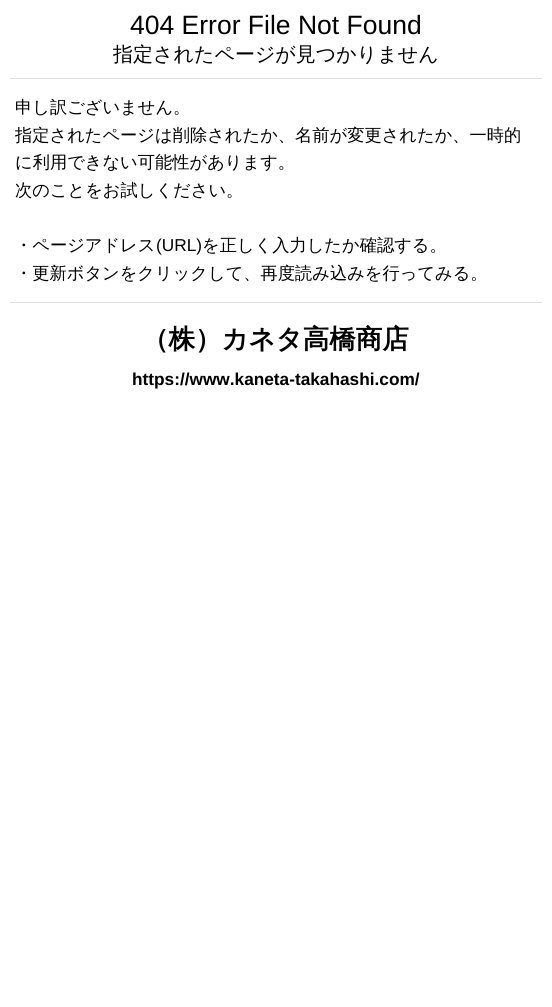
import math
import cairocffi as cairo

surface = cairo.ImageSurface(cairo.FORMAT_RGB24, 552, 1007)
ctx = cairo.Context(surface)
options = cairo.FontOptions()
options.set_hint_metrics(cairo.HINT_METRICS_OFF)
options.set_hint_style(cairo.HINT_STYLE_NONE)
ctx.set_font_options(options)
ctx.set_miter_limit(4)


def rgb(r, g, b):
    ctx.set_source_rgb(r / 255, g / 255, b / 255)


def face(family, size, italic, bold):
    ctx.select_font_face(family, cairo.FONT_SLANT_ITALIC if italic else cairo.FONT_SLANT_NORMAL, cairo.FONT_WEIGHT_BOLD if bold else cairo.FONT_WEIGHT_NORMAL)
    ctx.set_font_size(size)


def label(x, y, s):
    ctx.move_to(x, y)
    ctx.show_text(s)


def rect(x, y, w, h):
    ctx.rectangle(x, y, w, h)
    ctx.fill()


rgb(255, 255, 255)
ctx.paint()
face('Liberation Sans', 26.5, 0, 0)
rgb(0, 0, 0)
label(130, 34, '404 Error File Not Found')
face('WenQuanYi Zen Hei Medium', 20, 0, 0)
label(113, 61, '指定されたページが見つかりません')
rgb(224, 223, 227)
rect(10, 78, 532, 1)
rect(10, 302, 532, 1)
face('WenQuanYi Zen Hei Medium', 17.25, 0, 0)
rgb(0, 0, 0)
label(15, 113, '申し訳ございません。')
label(15, 141, '指定されたページは削除されたか、名前が変更されたか、一時的')
label(15, 168, 'に利用できない可能性があります。')
label(15, 196, '次のことをお試しください。')
label(15, 251, '・ページアドレス')
face('Liberation Sans', 17.25, 0, 0)
label(156, 251, '(URL)')
face('WenQuanYi Zen Hei Medium', 17.25, 0, 0)
label(202, 251, 'を正しく入力したか確認する。')
label(15, 279, '・更新ボタンをクリックして、再度読み込みを行ってみる。')
face('WenQuanYi Zen Hei', 26.5, 0, 1)
label(142, 348, '（株）カネタ高橋商店')
face('Liberation Sans', 17.25, 0, 1)
label(132, 385, 'https://www.kaneta-takahashi.com/')
surface.write_to_png('render.png')
